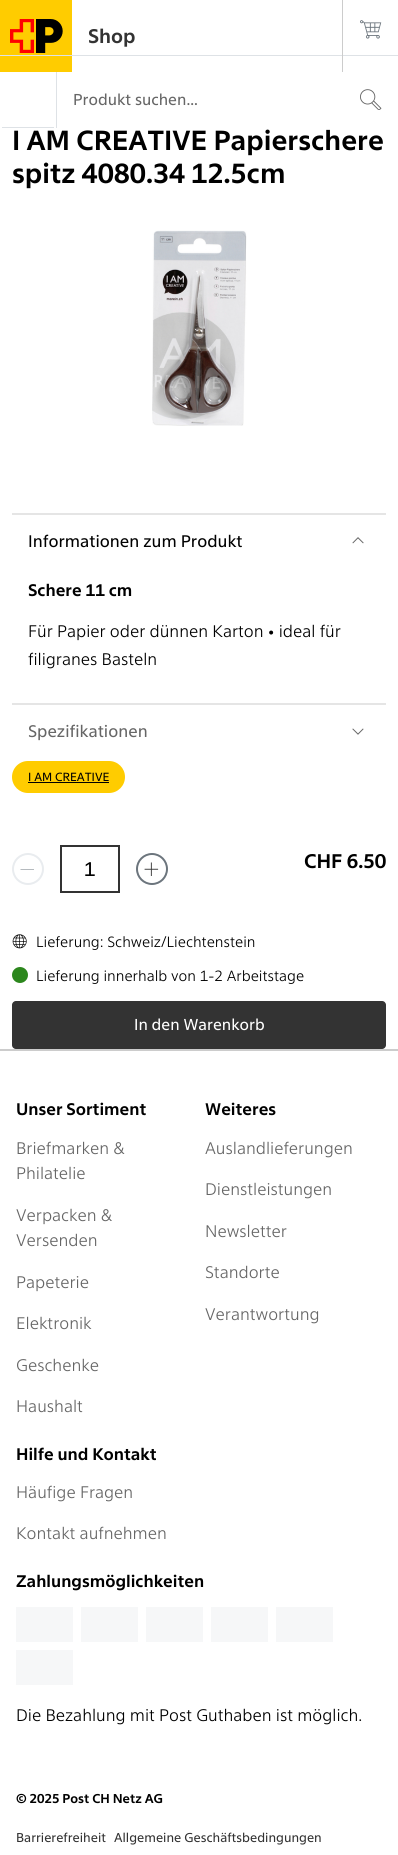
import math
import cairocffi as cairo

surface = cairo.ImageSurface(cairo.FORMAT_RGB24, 398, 1855)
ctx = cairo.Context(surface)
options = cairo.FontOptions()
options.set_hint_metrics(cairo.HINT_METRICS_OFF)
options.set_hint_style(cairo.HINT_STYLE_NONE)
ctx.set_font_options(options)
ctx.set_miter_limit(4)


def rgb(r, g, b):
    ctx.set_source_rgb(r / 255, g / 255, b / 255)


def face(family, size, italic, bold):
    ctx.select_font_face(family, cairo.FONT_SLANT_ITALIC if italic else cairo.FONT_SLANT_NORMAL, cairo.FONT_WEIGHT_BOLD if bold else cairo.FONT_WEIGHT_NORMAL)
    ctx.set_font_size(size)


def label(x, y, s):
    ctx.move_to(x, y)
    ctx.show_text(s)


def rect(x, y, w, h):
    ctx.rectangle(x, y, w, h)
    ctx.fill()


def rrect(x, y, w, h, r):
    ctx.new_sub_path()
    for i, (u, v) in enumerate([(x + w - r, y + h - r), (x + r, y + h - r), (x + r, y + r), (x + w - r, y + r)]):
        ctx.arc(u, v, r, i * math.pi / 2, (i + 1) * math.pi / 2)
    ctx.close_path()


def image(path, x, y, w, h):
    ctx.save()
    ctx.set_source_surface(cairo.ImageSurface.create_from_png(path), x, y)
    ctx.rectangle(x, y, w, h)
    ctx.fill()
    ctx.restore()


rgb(255, 255, 255)
ctx.paint()
image('image0.png', 0, 0, 72, 72)
face('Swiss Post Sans', 20, 0, 1)
rgb(51, 51, 51)
label(88, 43, 'Shop')
rgb(222, 226, 230)
rect(0, 55, 398, 1)
rgb(204, 204, 204)
rect(342, 0, 1, 72)
image('image1.png', 360, 20, 22, 19)
rgb(222, 226, 230)
rect(56, 72, 1, 56)
face('Swiss Post Sans', 16, 0, 0)
rgb(102, 102, 102)
label(73, 105, 'Produkt suchen...')
image('image2.png', 360, 89, 22, 21)
rgb(222, 226, 230)
rect(2, 127, 52, 1)
face('Swiss Post Sans', 28, 0, 1)
rgb(0, 0, 0)
label(12, 150, 'I AM CREATIVE Papierschere')
label(12, 183, 'spitz 4080.34 12.5cm')
image('image3.png', 152, 230, 95, 196)
rgb(229, 229, 229)
rect(12, 513, 374, 2)
face('Swiss Post Sans', 17, 0, 0)
rgb(0, 0, 0)
label(28, 547, 'Informationen zum Produkt')
image('image4.png', 352, 537, 12, 7)
face('Swiss Post Sans', 17, 0, 1)
label(28, 596, 'Schere 11 cm')
face('Swiss Post Sans Light', 17, 0, 0)
label(28, 637, 'Für Papier oder dünnen Karton • ideal für')
label(28, 665, 'filigranes Basteln')
rgb(229, 229, 229)
rect(12, 703, 374, 2)
face('Swiss Post Sans', 17, 0, 0)
rgb(102, 102, 102)
label(28, 737, 'Spezifikationen')
image('image5.png', 352, 728, 12, 7)
rgb(255, 204, 0)
rrect(12, 761, 113, 32, 16)
ctx.fill()
face('Swiss Post Sans', 12, 0, 0)
rgb(0, 0, 0)
label(28, 781, 'I AM CREATIVE')
rect(28, 782, 81, 1)
ctx.new_path()
ctx.arc(28, 869, 15, 0, 2 * math.pi)
rgb(233, 236, 239)
ctx.stroke()
rgb(108, 117, 125)
ctx.new_path()
ctx.move_to(20.5, 869)
ctx.line_to(34, 869)
ctx.line_to(34, 869.5)
ctx.line_to(20.5, 869.5)
ctx.close_path()
ctx.fill()
ctx.rectangle(61, 846, 58, 46)
rgb(51, 51, 51)
ctx.stroke()
face('Swiss Post Sans', 20, 0, 0)
rgb(0, 0, 0)
label(84, 876, '1')
ctx.new_path()
ctx.arc(152, 869, 15, 0, 2 * math.pi)
rgb(108, 117, 125)
ctx.stroke()
image('image6.png', 144, 862, 15, 14)
face('Swiss Post Sans', 20, 0, 1)
rgb(0, 0, 0)
label(304, 868, 'CHF 6.50')
image('image7.png', 12, 934, 15, 15)
face('Swiss Post Sans Light', 15, 0, 0)
label(36, 947, 'Lieferung: Schweiz/Liechtenstein')
rgb(44, 135, 29)
ctx.new_path()
ctx.arc(20, 975, 8, 0, 2 * math.pi)
ctx.fill()
rgb(0, 0, 0)
label(36, 981, 'Lieferung innerhalb von 1-2 Arbeitstage')
rgb(51, 51, 51)
rrect(12, 1001, 374, 48, 4)
ctx.fill()
face('Swiss Post Sans', 16, 0, 0)
rgb(255, 255, 255)
label(134, 1030, 'In den Warenkorb')
rgb(204, 204, 204)
rect(0, 1049, 398, 2)
face('Swiss Post Sans', 17, 0, 1)
rgb(0, 0, 0)
label(16, 1115, 'Unser Sortiment')
face('Swiss Post Sans Light', 17, 0, 0)
rgb(102, 102, 102)
label(16, 1154, 'Briefmarken &')
label(16, 1179, 'Philatelie')
label(16, 1221, 'Verpacken &')
label(16, 1246, 'Versenden')
label(16, 1288, 'Papeterie')
label(16, 1329, 'Elektronik')
label(16, 1371, 'Geschenke')
label(16, 1412, 'Haushalt')
face('Swiss Post Sans', 17, 0, 1)
rgb(0, 0, 0)
label(205, 1115, 'Weiteres')
face('Swiss Post Sans Light', 17, 0, 0)
rgb(102, 102, 102)
label(205, 1154, 'Auslandlieferungen')
label(205, 1195, 'Dienstleistungen')
label(205, 1237, 'Newsletter')
label(205, 1278, 'Standorte')
label(205, 1320, 'Verantwortung')
face('Swiss Post Sans', 17, 0, 1)
rgb(0, 0, 0)
label(16, 1460, 'Hilfe und Kontakt')
face('Swiss Post Sans Light', 17, 0, 0)
rgb(102, 102, 102)
label(16, 1498, 'Häufige Fragen')
label(16, 1539, 'Kontakt aufnehmen')
face('Swiss Post Sans', 17, 0, 1)
rgb(0, 0, 0)
label(16, 1587, 'Zahlungsmöglichkeiten')
rgb(246, 247, 248)
rect(16, 1607, 57, 35)
rect(81, 1607, 57, 35)
rect(146, 1607, 57, 35)
rect(211, 1607, 57, 35)
rect(276, 1607, 57, 35)
rect(16, 1650, 57, 35)
face('Swiss Post Sans Light', 17, 0, 0)
rgb(0, 0, 0)
label(16, 1721, 'Die Bezahlung mit Post Guthaben ist möglich.')
face('Swiss Post Sans', 13, 0, 1)
label(16, 1803, '© 2025 Post CH Netz AG')
face('Swiss Post Sans', 13, 0, 0)
rgb(51, 51, 51)
label(16, 1842, 'Barrierefreiheit')
label(114, 1842, 'Allgemeine Geschäftsbedingungen')
surface.write_to_png('render.png')
